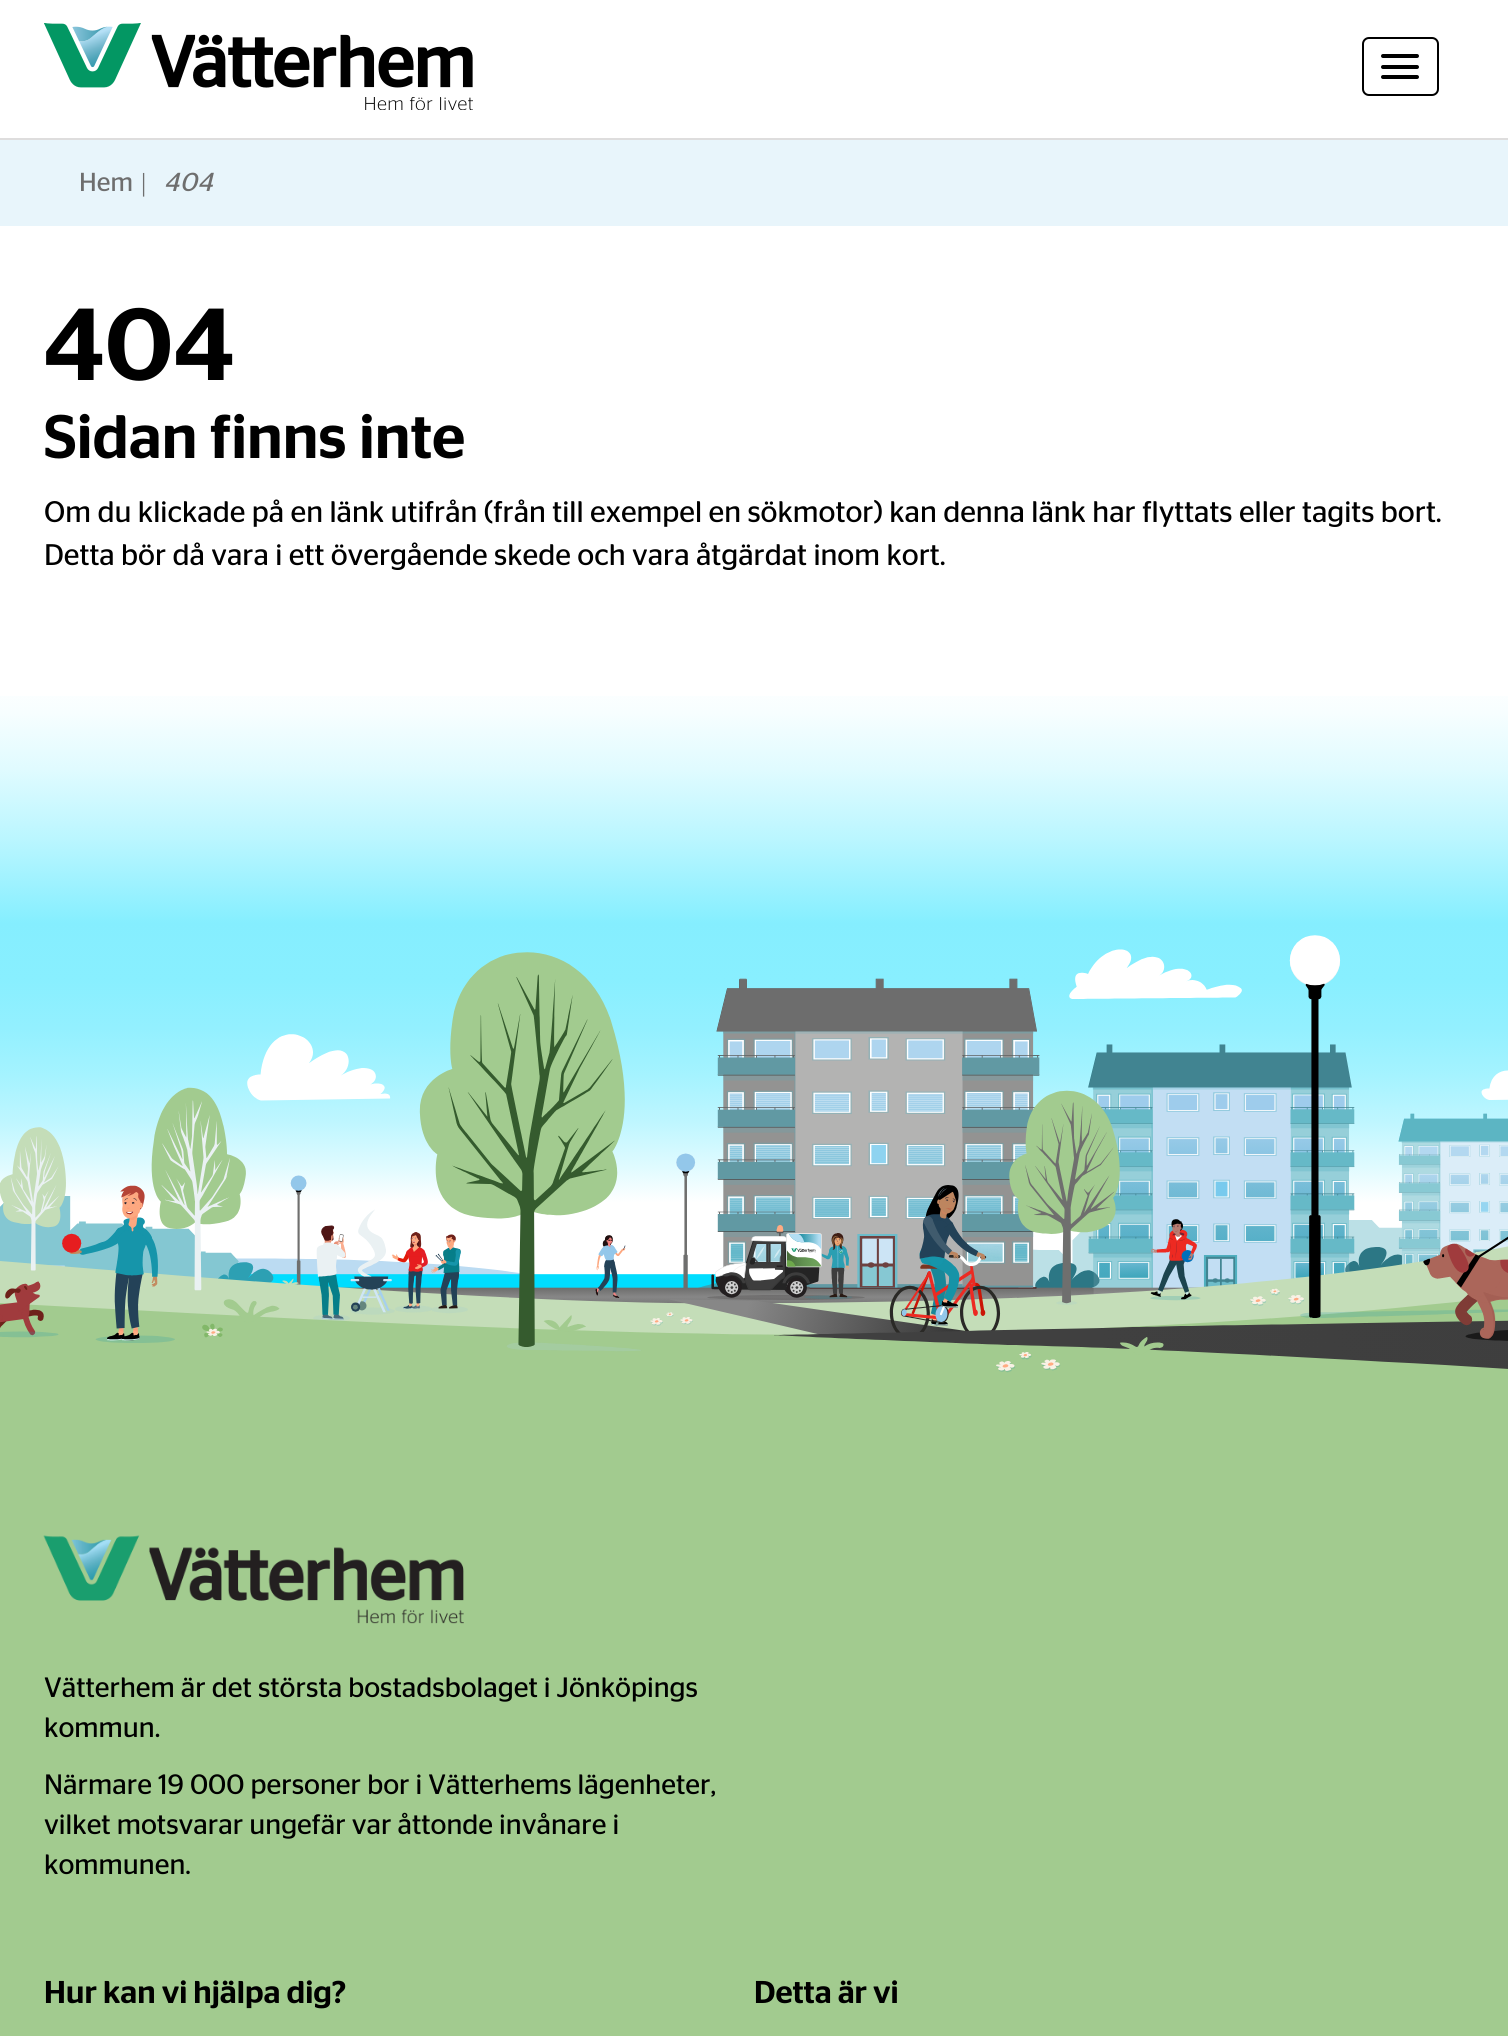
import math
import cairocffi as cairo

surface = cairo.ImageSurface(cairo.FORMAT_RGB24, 1508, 2036)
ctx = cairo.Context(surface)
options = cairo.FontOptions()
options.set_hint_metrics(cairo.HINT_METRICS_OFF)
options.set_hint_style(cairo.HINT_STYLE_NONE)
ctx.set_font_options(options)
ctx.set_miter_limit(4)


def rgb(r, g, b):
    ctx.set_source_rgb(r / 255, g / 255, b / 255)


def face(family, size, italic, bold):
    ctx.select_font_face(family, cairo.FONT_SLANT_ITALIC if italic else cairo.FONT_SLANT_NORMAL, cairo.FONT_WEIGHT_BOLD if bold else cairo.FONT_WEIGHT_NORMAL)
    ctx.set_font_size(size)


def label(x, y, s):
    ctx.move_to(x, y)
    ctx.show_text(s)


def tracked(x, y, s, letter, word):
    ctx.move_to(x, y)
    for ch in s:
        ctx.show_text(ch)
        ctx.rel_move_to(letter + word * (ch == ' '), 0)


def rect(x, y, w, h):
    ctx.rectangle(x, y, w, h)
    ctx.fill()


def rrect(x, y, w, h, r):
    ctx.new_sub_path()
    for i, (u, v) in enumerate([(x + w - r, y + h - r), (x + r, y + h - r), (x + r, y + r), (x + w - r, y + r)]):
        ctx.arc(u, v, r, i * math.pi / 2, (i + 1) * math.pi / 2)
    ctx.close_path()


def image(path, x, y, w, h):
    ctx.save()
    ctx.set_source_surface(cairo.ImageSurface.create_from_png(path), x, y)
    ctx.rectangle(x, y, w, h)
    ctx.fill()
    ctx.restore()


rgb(255, 255, 255)
ctx.paint()
image('image0.png', 44, 23, 429, 87)
rrect(1363, 38, 75, 57, 6)
rgb(0, 0, 0)
ctx.stroke()
rrect(1381, 54, 38, 4, 2)
ctx.fill()
rrect(1381, 65, 38, 4, 2)
ctx.fill()
rrect(1381, 75, 38, 4, 2)
ctx.fill()
rgb(222, 221, 221)
rect(0, 138, 1508, 2)
rgb(232, 245, 251)
rect(0, 140, 1508, 86)
face('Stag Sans', 26, 0, 0)
rgb(110, 110, 110)
label(79, 191, 'Hem')
face('Liberation Serif', 26, 0, 0)
tracked(141, 191, '|', 1, 0)
face('Stag Sans', 26, 1, 0)
tracked(164, 191, '404', 1, 0)
face('Stag Sans Medium', 102, 0, 0)
rgb(0, 0, 0)
tracked(44, 380, '404', 1, 0)
face('Stag Sans Medium', 61.25, 0, 0)
tracked(44, 458, 'Sidan finns inte', 0, 1)
face('Stag Sans', 29.75, 0, 0)
label(44, 522, 'Om du klickade på en länk utifrån (från till exempel en sökmotor) kan denna länk har flyttats eller tagits bort.')
label(44, 565, 'Detta bör då vara i ett övergående skede och vara åtgärdat inom kort.')
rgb(162, 203, 143)
rect(0, 1645, 1508, 391)
image('image1.png', 0, 696, 1508, 949)
image('image2.png', 43, 1535, 421, 89)
face('Stag Sans', 28, 0, 0)
rgb(0, 0, 0)
label(44, 1697, 'Vätterhem är det största bostadsbolaget i Jönköpings')
label(44, 1737, 'kommun.')
label(44, 1794, 'Närmare 19 000 personer bor i Vätterhems lägenheter,')
label(44, 1834, 'vilket motsvarar ungefär var åttonde invånare i')
label(44, 1874, 'kommunen.')
face('Stag Sans Medium', 31.5, 0, 0)
label(44, 2003, 'Hur kan vi hjälpa dig?')
label(754, 2003, 'Detta är vi')
surface.write_to_png('render.png')
